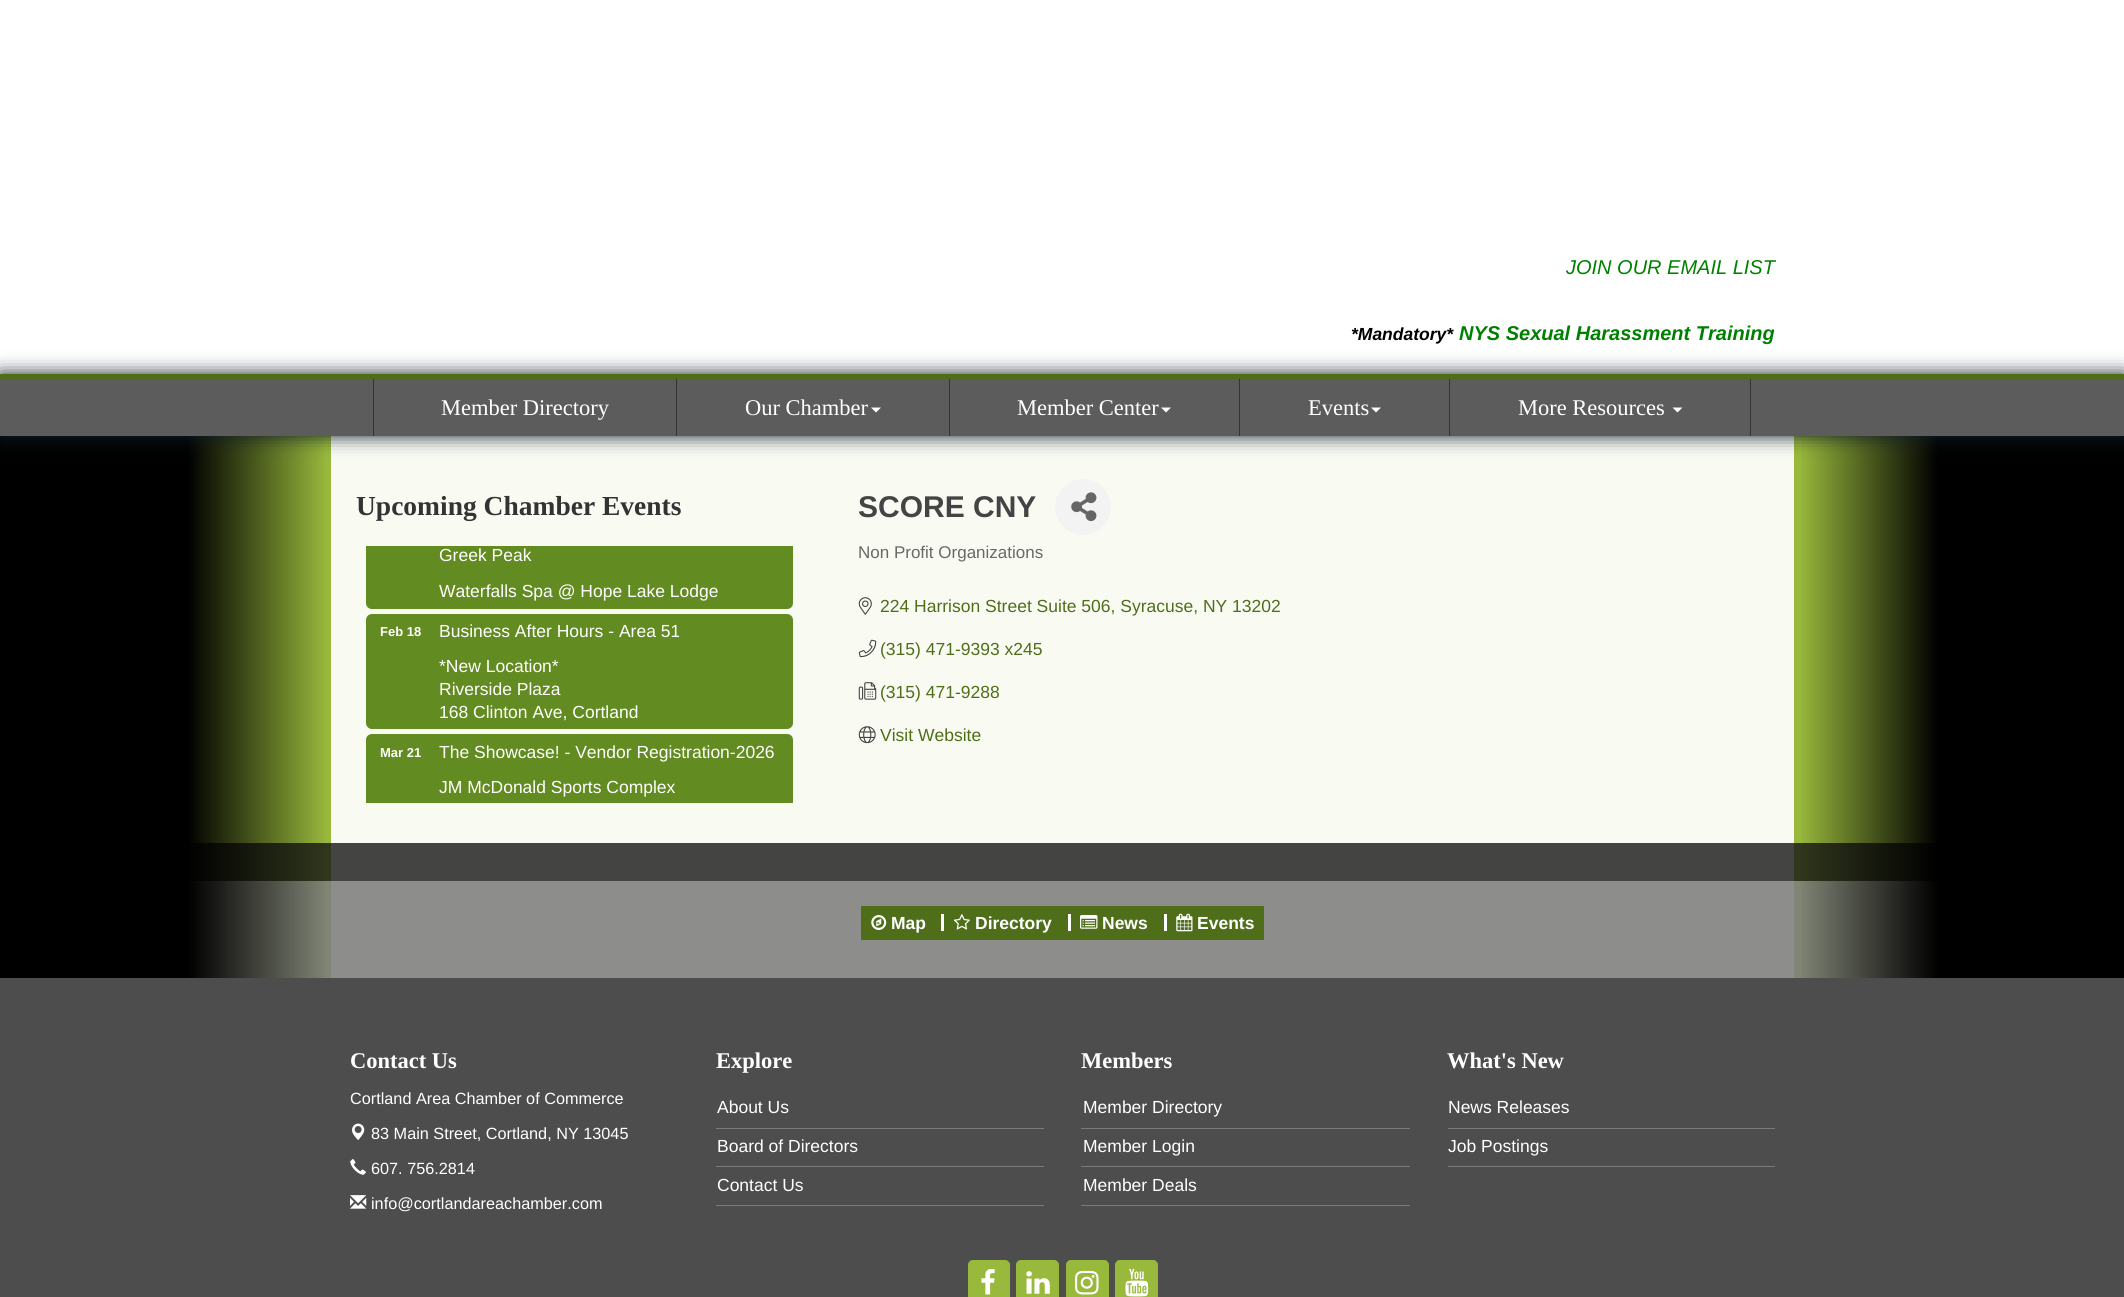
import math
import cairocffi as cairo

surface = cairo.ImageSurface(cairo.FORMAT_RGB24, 2124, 1297)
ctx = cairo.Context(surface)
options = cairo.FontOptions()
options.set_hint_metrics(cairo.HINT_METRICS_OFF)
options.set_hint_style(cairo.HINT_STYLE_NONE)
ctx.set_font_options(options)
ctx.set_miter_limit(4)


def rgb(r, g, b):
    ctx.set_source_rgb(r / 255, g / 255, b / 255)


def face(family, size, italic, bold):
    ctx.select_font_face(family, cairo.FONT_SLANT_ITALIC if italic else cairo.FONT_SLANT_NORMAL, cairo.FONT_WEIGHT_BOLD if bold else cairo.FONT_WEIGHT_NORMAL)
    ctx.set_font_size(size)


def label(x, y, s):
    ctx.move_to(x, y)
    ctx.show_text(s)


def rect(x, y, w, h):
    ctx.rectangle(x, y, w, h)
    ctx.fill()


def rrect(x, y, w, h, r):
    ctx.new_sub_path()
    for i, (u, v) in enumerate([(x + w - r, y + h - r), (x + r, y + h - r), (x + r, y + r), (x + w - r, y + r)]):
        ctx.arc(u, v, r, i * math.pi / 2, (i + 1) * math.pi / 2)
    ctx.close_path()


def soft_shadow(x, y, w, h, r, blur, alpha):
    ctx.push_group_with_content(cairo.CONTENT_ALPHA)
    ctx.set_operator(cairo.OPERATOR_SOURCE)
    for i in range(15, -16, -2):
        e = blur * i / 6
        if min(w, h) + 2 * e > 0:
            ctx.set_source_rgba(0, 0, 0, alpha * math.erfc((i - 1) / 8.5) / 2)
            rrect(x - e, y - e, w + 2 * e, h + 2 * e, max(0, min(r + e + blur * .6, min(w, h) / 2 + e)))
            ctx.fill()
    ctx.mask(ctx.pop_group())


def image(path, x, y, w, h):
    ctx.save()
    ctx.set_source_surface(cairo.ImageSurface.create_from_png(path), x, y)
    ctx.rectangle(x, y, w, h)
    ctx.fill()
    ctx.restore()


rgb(0, 0, 0)
ctx.paint()
rgb(255, 255, 255)
rect(0, 0, 2124, 374)
face('Liberation Sans', 20, 1, 0)
rgb(0, 128, 0)
label(1566, 274, 'JOIN OUR EMAIL LIST')
face('Liberation Sans', 17.5, 1, 1)
rgb(0, 0, 0)
label(1351, 340, '*Mandatory*')
face('Liberation Sans', 20, 1, 1)
rgb(0, 128, 0)
label(1459, 340, 'NYS Sexual Harassment Training')
rgb(153, 185, 60)
rect(189, 436, 1748, 407)
rgb(49, 55, 30)
rect(189, 843, 1748, 38)
rgb(129, 133, 118)
rect(189, 881, 1748, 97)
gradient = cairo.LinearGradient(188, 707, 328, 707)
gradient.add_color_stop_rgba(0, 0, 0, 0, 1)
gradient.add_color_stop_rgba(1, 0, 0, 0, 0)
ctx.set_source(gradient)
rect(189, 436, 136, 542)
rgb(249, 251, 243)
rect(331, 436, 1463, 407)
gradient = cairo.LinearGradient(1798, 707, 1938, 707)
gradient.add_color_stop_rgba(0, 0, 0, 0, 0)
gradient.add_color_stop_rgba(1, 0, 0, 0, 1)
ctx.set_source(gradient)
rect(1801, 436, 136, 542)
rgb(19, 33, 43)
soft_shadow(0, 374, 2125, 62, 0, 9.5, 1)
rgb(92, 92, 92)
rect(0, 379, 2124, 57)
rgb(78, 110, 26)
rect(0, 374, 2124, 5)
rgb(51, 51, 51)
rect(676, 379, 1, 57)
rect(373, 379, 1, 57)
face('Liberation Serif', 22.5, 0, 0)
rgb(255, 255, 255)
label(441, 415, 'Member Directory')
rgb(51, 51, 51)
rect(949, 379, 1, 57)
rgb(255, 255, 255)
label(745, 415, 'Our Chamber')
ctx.new_path()
ctx.move_to(871, 407.5)
ctx.line_to(881, 407.5)
ctx.line_to(876, 412.5)
ctx.close_path()
ctx.fill()
rgb(51, 51, 51)
rect(1239, 379, 1, 57)
rgb(255, 255, 255)
label(1017, 415, 'Member Center')
ctx.new_path()
ctx.move_to(1161, 407.5)
ctx.line_to(1171, 407.5)
ctx.line_to(1166, 412.5)
ctx.close_path()
ctx.fill()
rgb(51, 51, 51)
rect(1449, 379, 1, 57)
rgb(255, 255, 255)
label(1308, 415, 'Events')
ctx.new_path()
ctx.move_to(1371, 407.5)
ctx.line_to(1381, 407.5)
ctx.line_to(1376, 412.5)
ctx.close_path()
ctx.fill()
rgb(51, 51, 51)
rect(1750, 379, 1, 57)
rgb(255, 255, 255)
label(1518, 415, 'More Resources')
ctx.new_path()
ctx.move_to(1672.5, 407.5)
ctx.line_to(1682.5, 407.5)
ctx.line_to(1677.5, 412.5)
ctx.close_path()
ctx.fill()
rgb(68, 69, 67)
rect(331, 843, 1463, 38)
rgb(141, 142, 140)
rect(331, 881, 1463, 97)
face('Liberation Serif', 27.5, 0, 1)
rgb(51, 51, 51)
label(356, 515, 'Upcoming Chamber Events')
rgb(98, 139, 33)
ctx.new_path()
ctx.move_to(366, 546)
ctx.line_to(793, 546)
ctx.line_to(793, 603)
ctx.curve_to(793, 606.5, 790.5, 609, 787, 609)
ctx.line_to(372, 609)
ctx.curve_to(368.5, 609, 366, 606.5, 366, 603)
ctx.close_path()
ctx.fill()
face('Liberation Sans', 17.5, 0, 0)
rgb(255, 255, 255)
label(439, 561, 'Greek Peak')
label(439, 597, 'Waterfalls Spa @ Hope Lake Lodge')
rgb(98, 139, 33)
rrect(366, 614, 427, 115, 6)
ctx.fill()
face('Liberation Sans', 13, 0, 1)
rgb(255, 255, 255)
label(380, 636, 'Feb 18')
face('Liberation Sans', 17.5, 0, 0)
label(439, 637, 'Business After Hours - Area 51')
label(439, 672, '*New Location*')
label(439, 695, 'Riverside Plaza')
label(439, 718, '168 Clinton Ave, Cortland')
rgb(98, 139, 33)
ctx.new_path()
ctx.move_to(372, 734)
ctx.line_to(787, 734)
ctx.curve_to(790.5, 734, 793, 736.5, 793, 740)
ctx.line_to(793, 803)
ctx.line_to(366, 803)
ctx.line_to(366, 740)
ctx.curve_to(366, 736.5, 368.5, 734, 372, 734)
ctx.close_path()
ctx.fill()
face('Liberation Sans', 13, 0, 1)
rgb(255, 255, 255)
label(380, 757, 'Mar 21')
face('Liberation Sans', 17.5, 0, 0)
label(439, 758, 'The Showcase! - Vendor Registration-2026')
label(439, 793, 'JM McDonald Sports Complex')
face('Liberation Sans', 30, 0, 1)
rgb(68, 68, 68)
label(858, 517, 'SCORE CNY')
rgb(243, 243, 243)
ctx.new_path()
ctx.arc(1083, 507, 28, 0, 2 * math.pi)
ctx.fill()
image('image0.png', 1071, 492, 26, 30)
face('Liberation Sans', 17, 0, 0)
rgb(104, 105, 103)
label(858, 558, 'Non Profit Organizations')
image('image1.png', 858, 597, 14, 18)
face('Liberation Sans', 17.5, 0, 0)
rgb(78, 110, 26)
label(880, 612, '224 Harrison Street Suite 506, Syracuse, NY 13202')
image('image2.png', 858, 639, 19, 19)
label(880, 655, '(315) 471-9393 x245')
image('image3.png', 858, 682, 19, 18)
label(880, 698, '(315) 471-9288')
image('image4.png', 858, 726, 18, 18)
label(880, 741, 'Visit Website')
rect(861, 906, 403, 34)
image('image5.png', 871, 915, 16, 15)
face('Liberation Sans', 17.5, 0, 1)
rgb(255, 255, 255)
label(891, 929, 'Map')
rect(941, 914, 3, 17)
image('image6.png', 953, 914, 17, 16)
label(975, 929, 'Directory')
rect(1068, 914, 3, 17)
image('image7.png', 1080, 915, 18, 14)
label(1102, 929, 'News')
rect(1164, 914, 3, 17)
image('image8.png', 1176, 913, 17, 19)
label(1197, 929, 'Events')
rgb(77, 77, 77)
rect(0, 978, 2124, 319)
face('Liberation Serif', 22.5, 0, 1)
rgb(255, 255, 255)
label(350, 1068, 'Contact Us')
face('Liberation Sans', 16.25, 0, 0)
label(350, 1104, 'Cortland Area Chamber of Commerce')
image('image9.png', 352, 1123, 13, 18)
label(371, 1139, '83 Main Street, Cortland, NY 13045')
image('image10.png', 350, 1159, 16, 16)
label(371, 1174, '607. 756.2814')
image('image11.png', 350, 1195, 17, 14)
label(371, 1209, 'info@cortlandareachamber.com')
face('Liberation Serif', 22.5, 0, 1)
label(716, 1068, 'Explore')
rgb(122, 122, 122)
rect(716, 1128, 328, 1)
face('Liberation Sans', 17.5, 0, 0)
rgb(255, 255, 255)
label(717, 1113, 'About Us')
rgb(122, 122, 122)
rect(716, 1166, 328, 1)
rgb(255, 255, 255)
label(717, 1152, 'Board of Directors')
rgb(122, 122, 122)
rect(716, 1205, 328, 1)
rgb(255, 255, 255)
label(717, 1191, 'Contact Us')
face('Liberation Serif', 22.5, 0, 1)
label(1081, 1068, 'Members')
rgb(122, 122, 122)
rect(1081, 1128, 329, 1)
face('Liberation Sans', 17.5, 0, 0)
rgb(255, 255, 255)
label(1083, 1113, 'Member Directory')
rgb(122, 122, 122)
rect(1081, 1166, 329, 1)
rgb(255, 255, 255)
label(1083, 1152, 'Member Login')
rgb(122, 122, 122)
rect(1081, 1205, 329, 1)
rgb(255, 255, 255)
label(1083, 1191, 'Member Deals')
face('Liberation Serif', 22.5, 0, 1)
label(1447, 1068, 'What\'s New')
rgb(122, 122, 122)
rect(1448, 1128, 327, 1)
face('Liberation Sans', 17.5, 0, 0)
rgb(255, 255, 255)
label(1448, 1113, 'News Releases')
rgb(122, 122, 122)
rect(1448, 1166, 327, 1)
rgb(255, 255, 255)
label(1448, 1152, 'Job Postings')
rgb(153, 185, 60)
rrect(968.5, 1260.5, 41, 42, 4.5)
ctx.fill_preserve()
ctx.set_line_width(1)
ctx.stroke()
image('image12.png', 981, 1268, 14, 27)
rrect(1016.5, 1260.5, 42, 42, 4.5)
ctx.fill_preserve()
ctx.stroke()
image('image13.png', 1026, 1271, 24, 23)
rrect(1066.5, 1260.5, 42, 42, 4.5)
ctx.fill_preserve()
ctx.stroke()
image('image14.png', 1075, 1270, 24, 25)
rrect(1115.5, 1260.5, 42, 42, 4.5)
ctx.fill_preserve()
ctx.stroke()
image('image15.png', 1125, 1268, 24, 29)
surface.write_to_png('render.png')
